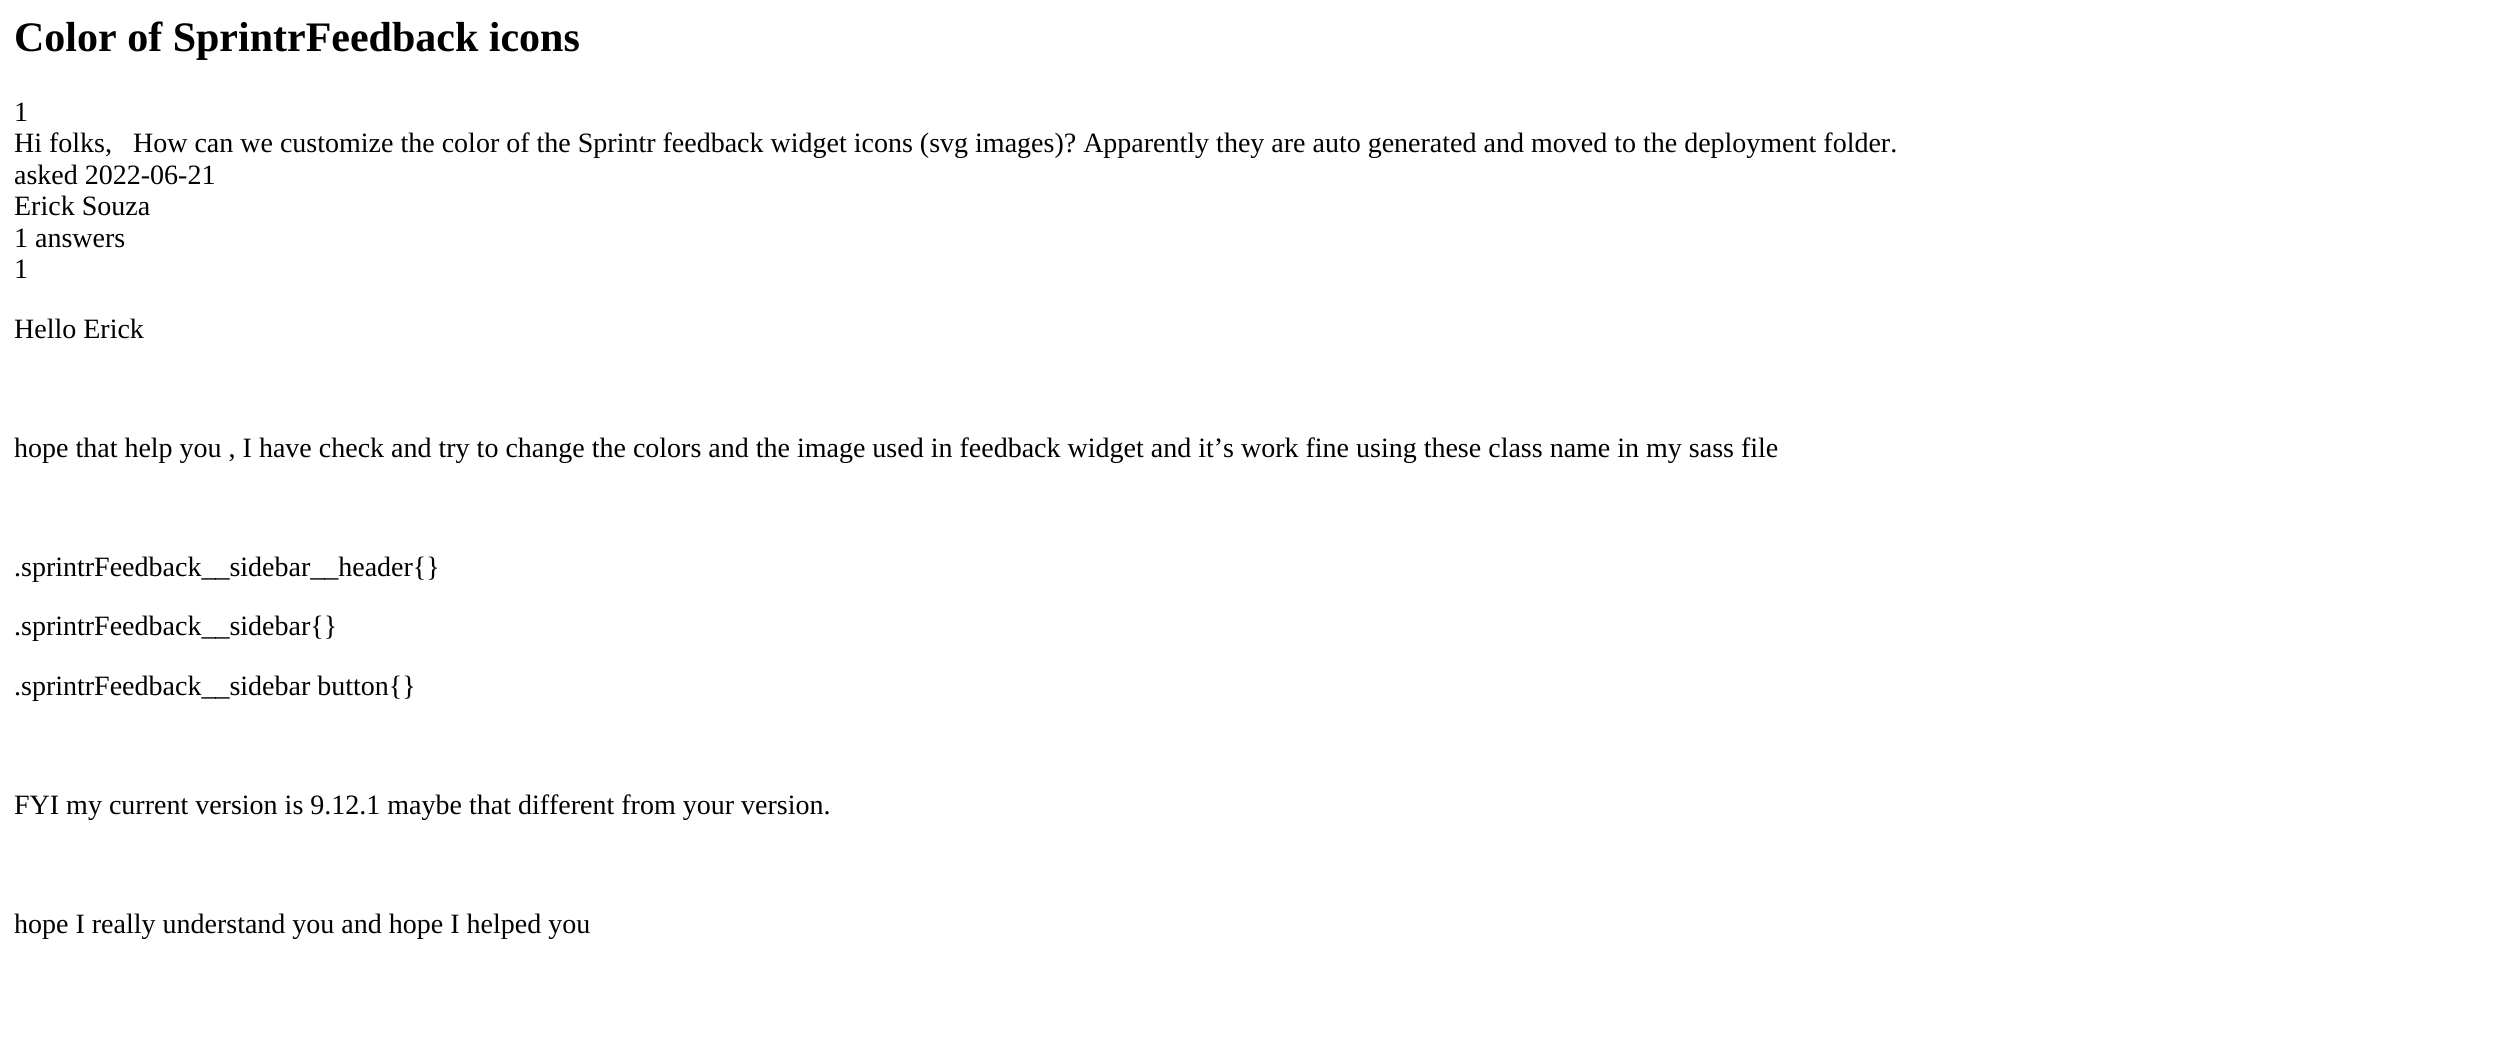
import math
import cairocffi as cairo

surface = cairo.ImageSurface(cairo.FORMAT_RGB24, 2506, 1062)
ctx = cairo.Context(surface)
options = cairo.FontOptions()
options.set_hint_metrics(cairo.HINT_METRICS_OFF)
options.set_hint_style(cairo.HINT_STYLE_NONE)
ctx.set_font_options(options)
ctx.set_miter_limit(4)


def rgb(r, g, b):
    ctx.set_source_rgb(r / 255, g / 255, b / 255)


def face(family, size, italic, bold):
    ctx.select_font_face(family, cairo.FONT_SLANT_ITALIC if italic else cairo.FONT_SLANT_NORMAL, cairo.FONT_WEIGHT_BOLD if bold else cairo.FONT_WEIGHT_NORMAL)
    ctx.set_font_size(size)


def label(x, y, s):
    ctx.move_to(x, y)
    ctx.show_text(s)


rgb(255, 255, 255)
ctx.paint()
face('Liberation Serif', 42, 0, 1)
rgb(0, 0, 0)
label(14, 51, 'Color of SprintrFeedback icons')
face('Liberation Serif', 28, 0, 0)
label(14, 121, '1')
label(14, 152, 'Hi folks,   How can we customize the color of the Sprintr feedback widget icons (svg images)? Apparently they are auto generated and moved to the deployment folder.')
label(14, 184, 'asked 2022-06-21')
label(14, 215, 'Erick Souza')
label(14, 247, '1 answers')
label(14, 278, '1')
label(14, 338, 'Hello Erick')
label(14, 457, 'hope that help you , I have check and try to change the colors and the image used in feedback widget and it’s work fine using these class name in my sass file')
label(14, 576, '.sprintrFeedback__sidebar__header{}')
label(14, 635, '.sprintrFeedback__sidebar{}')
label(14, 695, '.sprintrFeedback__sidebar button{}')
label(14, 814, 'FYI my current version is 9.12.1 maybe that different from your version.')
label(14, 933, 'hope I really understand you and hope I helped you')
surface.write_to_png('render.png')
